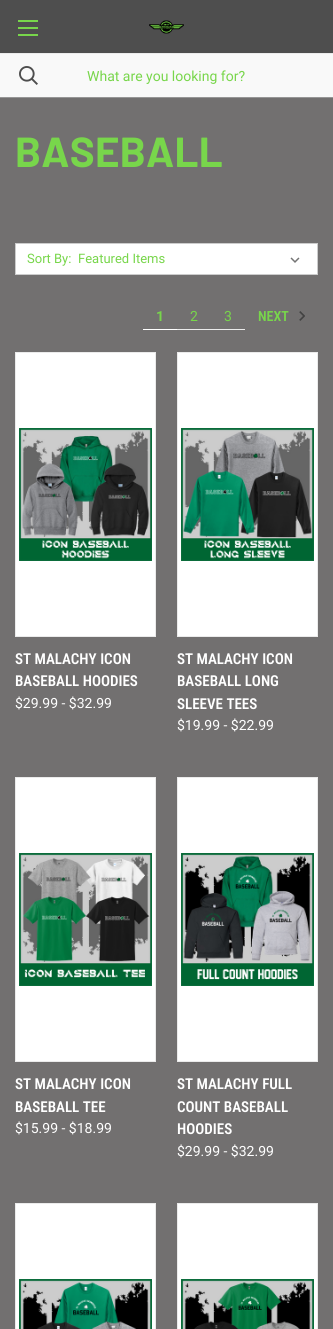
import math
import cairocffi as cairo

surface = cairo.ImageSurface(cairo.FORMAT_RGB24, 333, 1329)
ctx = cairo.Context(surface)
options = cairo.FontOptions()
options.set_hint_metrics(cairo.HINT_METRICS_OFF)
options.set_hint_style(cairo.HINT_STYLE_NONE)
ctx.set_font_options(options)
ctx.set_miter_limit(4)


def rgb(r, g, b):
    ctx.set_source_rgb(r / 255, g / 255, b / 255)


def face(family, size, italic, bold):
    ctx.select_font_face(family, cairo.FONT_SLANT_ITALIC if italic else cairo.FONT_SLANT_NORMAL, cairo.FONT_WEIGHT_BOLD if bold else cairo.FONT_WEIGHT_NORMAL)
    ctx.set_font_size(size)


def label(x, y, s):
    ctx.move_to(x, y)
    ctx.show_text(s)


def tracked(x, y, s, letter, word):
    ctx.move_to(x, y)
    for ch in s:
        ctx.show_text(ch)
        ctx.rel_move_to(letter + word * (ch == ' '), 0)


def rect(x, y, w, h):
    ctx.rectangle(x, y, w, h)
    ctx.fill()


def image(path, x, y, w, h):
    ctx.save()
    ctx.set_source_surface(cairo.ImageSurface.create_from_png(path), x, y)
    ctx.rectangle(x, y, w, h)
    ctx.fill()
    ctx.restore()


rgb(114, 112, 112)
ctx.paint()
rgb(78, 78, 78)
rect(0, 0, 333, 53)
rgb(120, 214, 75)
rect(18, 27, 20, 2)
rect(18, 20, 20, 2)
rect(18, 34, 20, 2)
image('image0.png', 149, 20, 35, 14)
rgb(249, 249, 249)
rect(0, 54, 333, 43)
image('image1.png', 19, 66, 19, 19)
rgb(235, 235, 235)
rect(0, 53, 333, 1)
face('Roboto', 14, 0, 0)
rgb(120, 214, 75)
label(87, 81, 'What are you looking for?')
rgb(150, 150, 150)
rect(0, 97, 333, 1)
face('Barlow', 42, 0, 1)
rgb(120, 214, 75)
tracked(15, 167, 'BASEBALL', 0.25, 0)
rgb(255, 255, 255)
ctx.rectangle(15.5, 243.5, 302, 31)
ctx.fill_preserve()
rgb(204, 204, 204)
ctx.set_line_width(1)
ctx.stroke()
face('Roboto', 13, 0, 0)
rgb(120, 214, 75)
label(27, 263, 'Sort By:')
image('image2.png', 290, 257, 10, 6)
label(78, 263, 'Featured Items')
rgb(255, 255, 255)
rect(143, 329, 34, 1)
face('Roboto', 14, 0, 1)
rgb(120, 214, 75)
label(156, 321, '1')
rgb(235, 235, 235)
rect(177, 329, 68, 1)
face('Roboto', 14, 0, 0)
rgb(120, 214, 75)
label(190, 321, '2')
label(224, 321, '3')
face('Roboto Condensed SemiBold', 14, 0, 0)
label(258, 321, 'NEXT')
image('image3.png', 299, 311, 6, 10)
rgb(255, 255, 255)
ctx.rectangle(15.5, 352.5, 140, 284)
ctx.fill_preserve()
rgb(235, 235, 235)
ctx.stroke()
image('image4.png', 19, 428, 133, 133)
face('Roboto Condensed SemiBold', 15, 0, 0)
rgb(255, 255, 255)
label(15, 664, 'ST MALACHY ICON')
label(15, 686, 'BASEBALL HOODIES')
face('Roboto', 14, 0, 0)
label(15, 708, '$29.99 - $32.99')
ctx.rectangle(177.5, 352.5, 140, 284)
ctx.fill_preserve()
rgb(235, 235, 235)
ctx.stroke()
image('image5.png', 181, 428, 133, 133)
face('Roboto Condensed SemiBold', 15, 0, 0)
rgb(255, 255, 255)
label(177, 664, 'ST MALACHY ICON')
label(177, 686, 'BASEBALL LONG')
label(177, 709, 'SLEEVE TEES')
face('Roboto', 14, 0, 0)
label(177, 730, '$19.99 - $22.99')
ctx.rectangle(15.5, 777.5, 140, 284)
ctx.fill_preserve()
rgb(235, 235, 235)
ctx.stroke()
image('image6.png', 19, 853, 133, 133)
face('Roboto Condensed SemiBold', 15, 0, 0)
rgb(255, 255, 255)
label(15, 1089, 'ST MALACHY ICON')
label(15, 1112, 'BASEBALL TEE')
face('Roboto', 14, 0, 0)
label(15, 1133, '$15.99 - $18.99')
ctx.rectangle(177.5, 777.5, 140, 284)
ctx.fill_preserve()
rgb(235, 235, 235)
ctx.stroke()
image('image7.png', 181, 853, 133, 133)
face('Roboto Condensed SemiBold', 15, 0, 0)
rgb(255, 255, 255)
label(177, 1089, 'ST MALACHY FULL')
label(177, 1112, 'COUNT BASEBALL')
label(177, 1134, 'HOODIES')
face('Roboto', 14, 0, 0)
label(177, 1156, '$29.99 - $32.99')
ctx.rectangle(15.5, 1203.5, 140, 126)
ctx.fill_preserve()
rgb(235, 235, 235)
ctx.stroke()
image('image8.png', 19, 1279, 133, 50)
rgb(255, 255, 255)
ctx.rectangle(177.5, 1203.5, 140, 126)
ctx.fill_preserve()
rgb(235, 235, 235)
ctx.stroke()
image('image9.png', 181, 1279, 133, 50)
surface.write_to_png('render.png')
